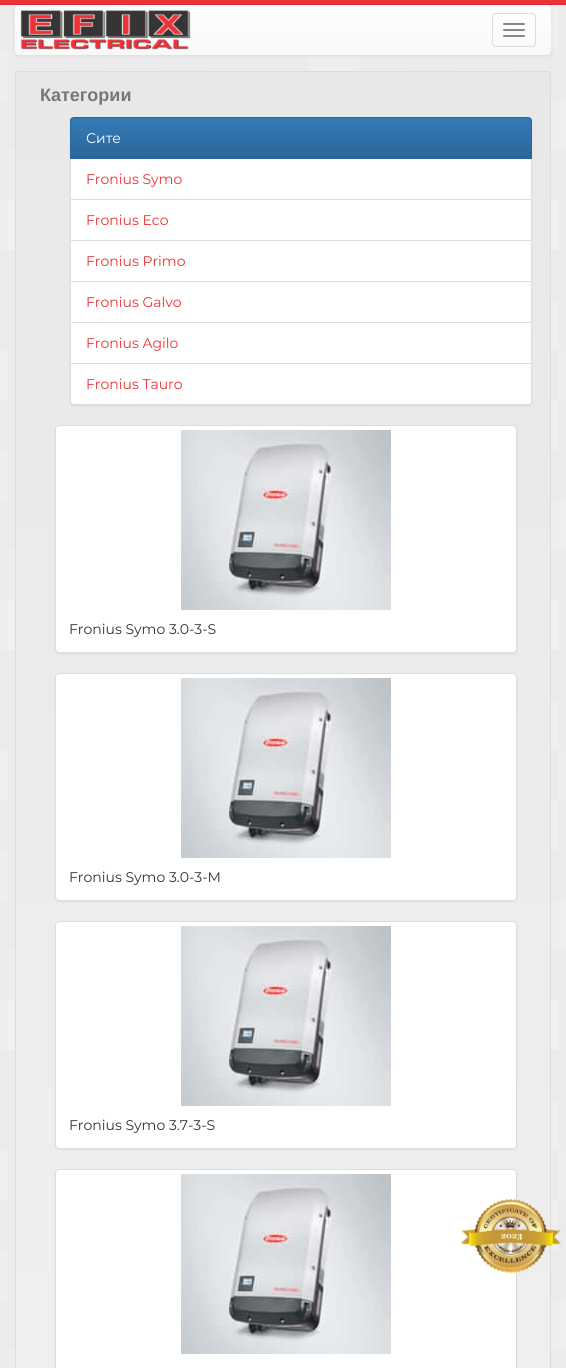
import math
import cairocffi as cairo

surface = cairo.ImageSurface(cairo.FORMAT_RGB24, 566, 1368)
ctx = cairo.Context(surface)
options = cairo.FontOptions()
options.set_hint_metrics(cairo.HINT_METRICS_OFF)
options.set_hint_style(cairo.HINT_STYLE_NONE)
ctx.set_font_options(options)
ctx.set_miter_limit(4)


def rgb(r, g, b):
    ctx.set_source_rgb(r / 255, g / 255, b / 255)


def face(family, size, italic, bold):
    ctx.select_font_face(family, cairo.FONT_SLANT_ITALIC if italic else cairo.FONT_SLANT_NORMAL, cairo.FONT_WEIGHT_BOLD if bold else cairo.FONT_WEIGHT_NORMAL)
    ctx.set_font_size(size)


def label(x, y, s):
    ctx.move_to(x, y)
    ctx.show_text(s)


def rect(x, y, w, h):
    ctx.rectangle(x, y, w, h)
    ctx.fill()


def rrect(x, y, w, h, r):
    ctx.new_sub_path()
    for i, (u, v) in enumerate([(x + w - r, y + h - r), (x + r, y + h - r), (x + r, y + r), (x + w - r, y + r)]):
        ctx.arc(u, v, r, i * math.pi / 2, (i + 1) * math.pi / 2)
    ctx.close_path()


def soft_shadow(x, y, w, h, r, blur, alpha):
    ctx.push_group_with_content(cairo.CONTENT_ALPHA)
    ctx.set_operator(cairo.OPERATOR_SOURCE)
    for i in range(15, -16, -2):
        e = blur * i / 6
        if min(w, h) + 2 * e > 0:
            ctx.set_source_rgba(0, 0, 0, alpha * math.erfc((i - 1) / 8.5) / 2)
            rrect(x - e, y - e, w + 2 * e, h + 2 * e, max(0, min(r + e + blur * .6, min(w, h) / 2 + e)))
            ctx.fill()
    ctx.mask(ctx.pop_group())


def image(path, x, y, w, h):
    ctx.save()
    ctx.set_source_surface(cairo.ImageSurface.create_from_png(path), x, y)
    ctx.rectangle(x, y, w, h)
    ctx.fill()
    ctx.restore()


rgb(255, 255, 255)
ctx.paint()
image('image0.png', 0, 5, 566, 1363)
rgb(237, 50, 55)
rect(0, 0, 566, 4)
rgb(213, 45, 50)
rect(0, 4, 566, 1)
rgb(0, 0, 0)
soft_shadow(15, 6, 536, 50, 4, 2.5, 0.07)
gradient = cairo.LinearGradient(283, 5, 283, 55)
gradient.add_color_stop_rgba(0, 1, 1, 1, 1)
gradient.add_color_stop_rgba(1, 0.973, 0.973, 0.973, 1)
ctx.set_source(gradient)
rrect(15, 5, 536, 50, 4)
ctx.fill()
image('image1.png', 20, 10, 171, 40)
rrect(492.5, 13.5, 43, 33, 3.5)
rgb(221, 221, 221)
ctx.set_line_width(1)
ctx.stroke()
rgb(136, 136, 136)
rrect(503, 23, 22, 2, 1)
ctx.fill()
rrect(503, 29, 22, 2, 1)
ctx.fill()
rrect(503, 35, 22, 2, 1)
ctx.fill()
ctx.save()
rrect(15, 71, 536, 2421, 3)
ctx.clip()
gradient = cairo.LinearGradient(283, 72, 283, 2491)
gradient.add_color_stop_rgba(0, 0.91, 0.91, 0.91, 1)
gradient.add_color_stop_rgba(1, 0.961, 0.961, 0.961, 1)
ctx.set_source(gradient)
rect(15, 72, 536, 1296)
ctx.restore()
rrect(15.5, 71.5, 535, 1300, 2.5)
rgb(220, 220, 220)
ctx.stroke()
rgb(0, 0, 0)
soft_shadow(55, 1170, 462, 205, 4, 1, 0.07)
rgb(255, 255, 255)
rrect(55.5, 1169.5, 461, 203, 3.5)
ctx.fill_preserve()
rgb(221, 221, 221)
ctx.stroke()
image('image2.png', 461, 1199, 100, 74)
face('Liberation Sans', 18, 0, 1)
rgb(119, 119, 119)
label(40, 101, 'Категории')
rgb(0, 0, 0)
soft_shadow(70, 118, 462, 288, 4, 1, 0.07)
ctx.save()
ctx.new_path()
ctx.move_to(74, 117)
ctx.line_to(528, 117)
ctx.curve_to(530, 117, 532, 119, 532, 121)
ctx.line_to(532, 159)
ctx.line_to(70, 159)
ctx.line_to(70, 121)
ctx.curve_to(70, 119, 72, 117, 74, 117)
ctx.close_path()
ctx.clip()
gradient = cairo.LinearGradient(301, 118, 301, 158)
gradient.add_color_stop_rgba(0, 0.2, 0.478, 0.718, 1)
gradient.add_color_stop_rgba(1, 0.169, 0.4, 0.604, 1)
ctx.set_source(gradient)
rect(70, 118, 462, 40)
ctx.restore()
rgb(255, 255, 255)
ctx.rectangle(70.5, 158.5, 461, 41)
ctx.fill_preserve()
rgb(221, 221, 221)
ctx.stroke()
ctx.new_path()
ctx.move_to(74, 117.5)
ctx.line_to(528, 117.5)
ctx.curve_to(530, 117.5, 531.5, 119, 531.5, 121)
ctx.line_to(531.5, 158.5)
ctx.line_to(70.5, 158.5)
ctx.line_to(70.5, 121)
ctx.curve_to(70.5, 119, 72, 117.5, 74, 117.5)
ctx.close_path()
rgb(43, 102, 154)
ctx.stroke()
face('Montserrat Thin', 14, 0, 0)
rgb(255, 255, 255)
label(86, 143, 'Сите')
rgb(237, 50, 55)
label(86, 184, 'Fronius Symo')
rgb(255, 255, 255)
ctx.rectangle(70.5, 199.5, 461, 41)
ctx.fill_preserve()
rgb(221, 221, 221)
ctx.stroke()
rgb(237, 50, 55)
label(86, 225, 'Fronius Eco')
rgb(255, 255, 255)
ctx.rectangle(70.5, 240.5, 461, 41)
ctx.fill_preserve()
rgb(221, 221, 221)
ctx.stroke()
rgb(237, 50, 55)
label(86, 266, 'Fronius Primo')
rgb(255, 255, 255)
ctx.rectangle(70.5, 281.5, 461, 41)
ctx.fill_preserve()
rgb(221, 221, 221)
ctx.stroke()
rgb(237, 50, 55)
label(86, 307, 'Fronius Galvo')
rgb(255, 255, 255)
ctx.rectangle(70.5, 322.5, 461, 41)
ctx.fill_preserve()
rgb(221, 221, 221)
ctx.stroke()
rgb(237, 50, 55)
label(86, 348, 'Fronius Agilo')
rgb(255, 255, 255)
ctx.new_path()
ctx.move_to(70.5, 363.5)
ctx.line_to(531.5, 363.5)
ctx.line_to(531.5, 401)
ctx.curve_to(531.5, 403, 530, 404.5, 528, 404.5)
ctx.line_to(74, 404.5)
ctx.curve_to(72, 404.5, 70.5, 403, 70.5, 401)
ctx.close_path()
ctx.fill_preserve()
rgb(221, 221, 221)
ctx.stroke()
rgb(237, 50, 55)
label(86, 389, 'Fronius Tauro')
rgb(0, 0, 0)
soft_shadow(55, 426, 462, 228, 4, 1, 0.07)
rgb(255, 255, 255)
rrect(55.5, 425.5, 461, 227, 3.5)
ctx.fill_preserve()
rgb(221, 221, 221)
ctx.stroke()
image('image3.png', 181, 430, 210, 180)
rgb(51, 51, 51)
label(69, 634, 'Fronius Symo 3.0-3-S')
rgb(0, 0, 0)
soft_shadow(55, 674, 462, 228, 4, 1, 0.07)
rgb(255, 255, 255)
rrect(55.5, 673.5, 461, 227, 3.5)
ctx.fill_preserve()
rgb(221, 221, 221)
ctx.stroke()
image('image3.png', 181, 678, 210, 180)
rgb(51, 51, 51)
label(69, 882, 'Fronius Symo 3.0-3-M')
rgb(0, 0, 0)
soft_shadow(55, 922, 462, 228, 4, 1, 0.07)
rgb(255, 255, 255)
rrect(55.5, 921.5, 461, 227, 3.5)
ctx.fill_preserve()
rgb(221, 221, 221)
ctx.stroke()
image('image3.png', 181, 926, 210, 180)
rgb(51, 51, 51)
label(69, 1130, 'Fronius Symo 3.7-3-S')
image('image3.png', 181, 1174, 210, 180)
surface.write_to_png('render.png')
